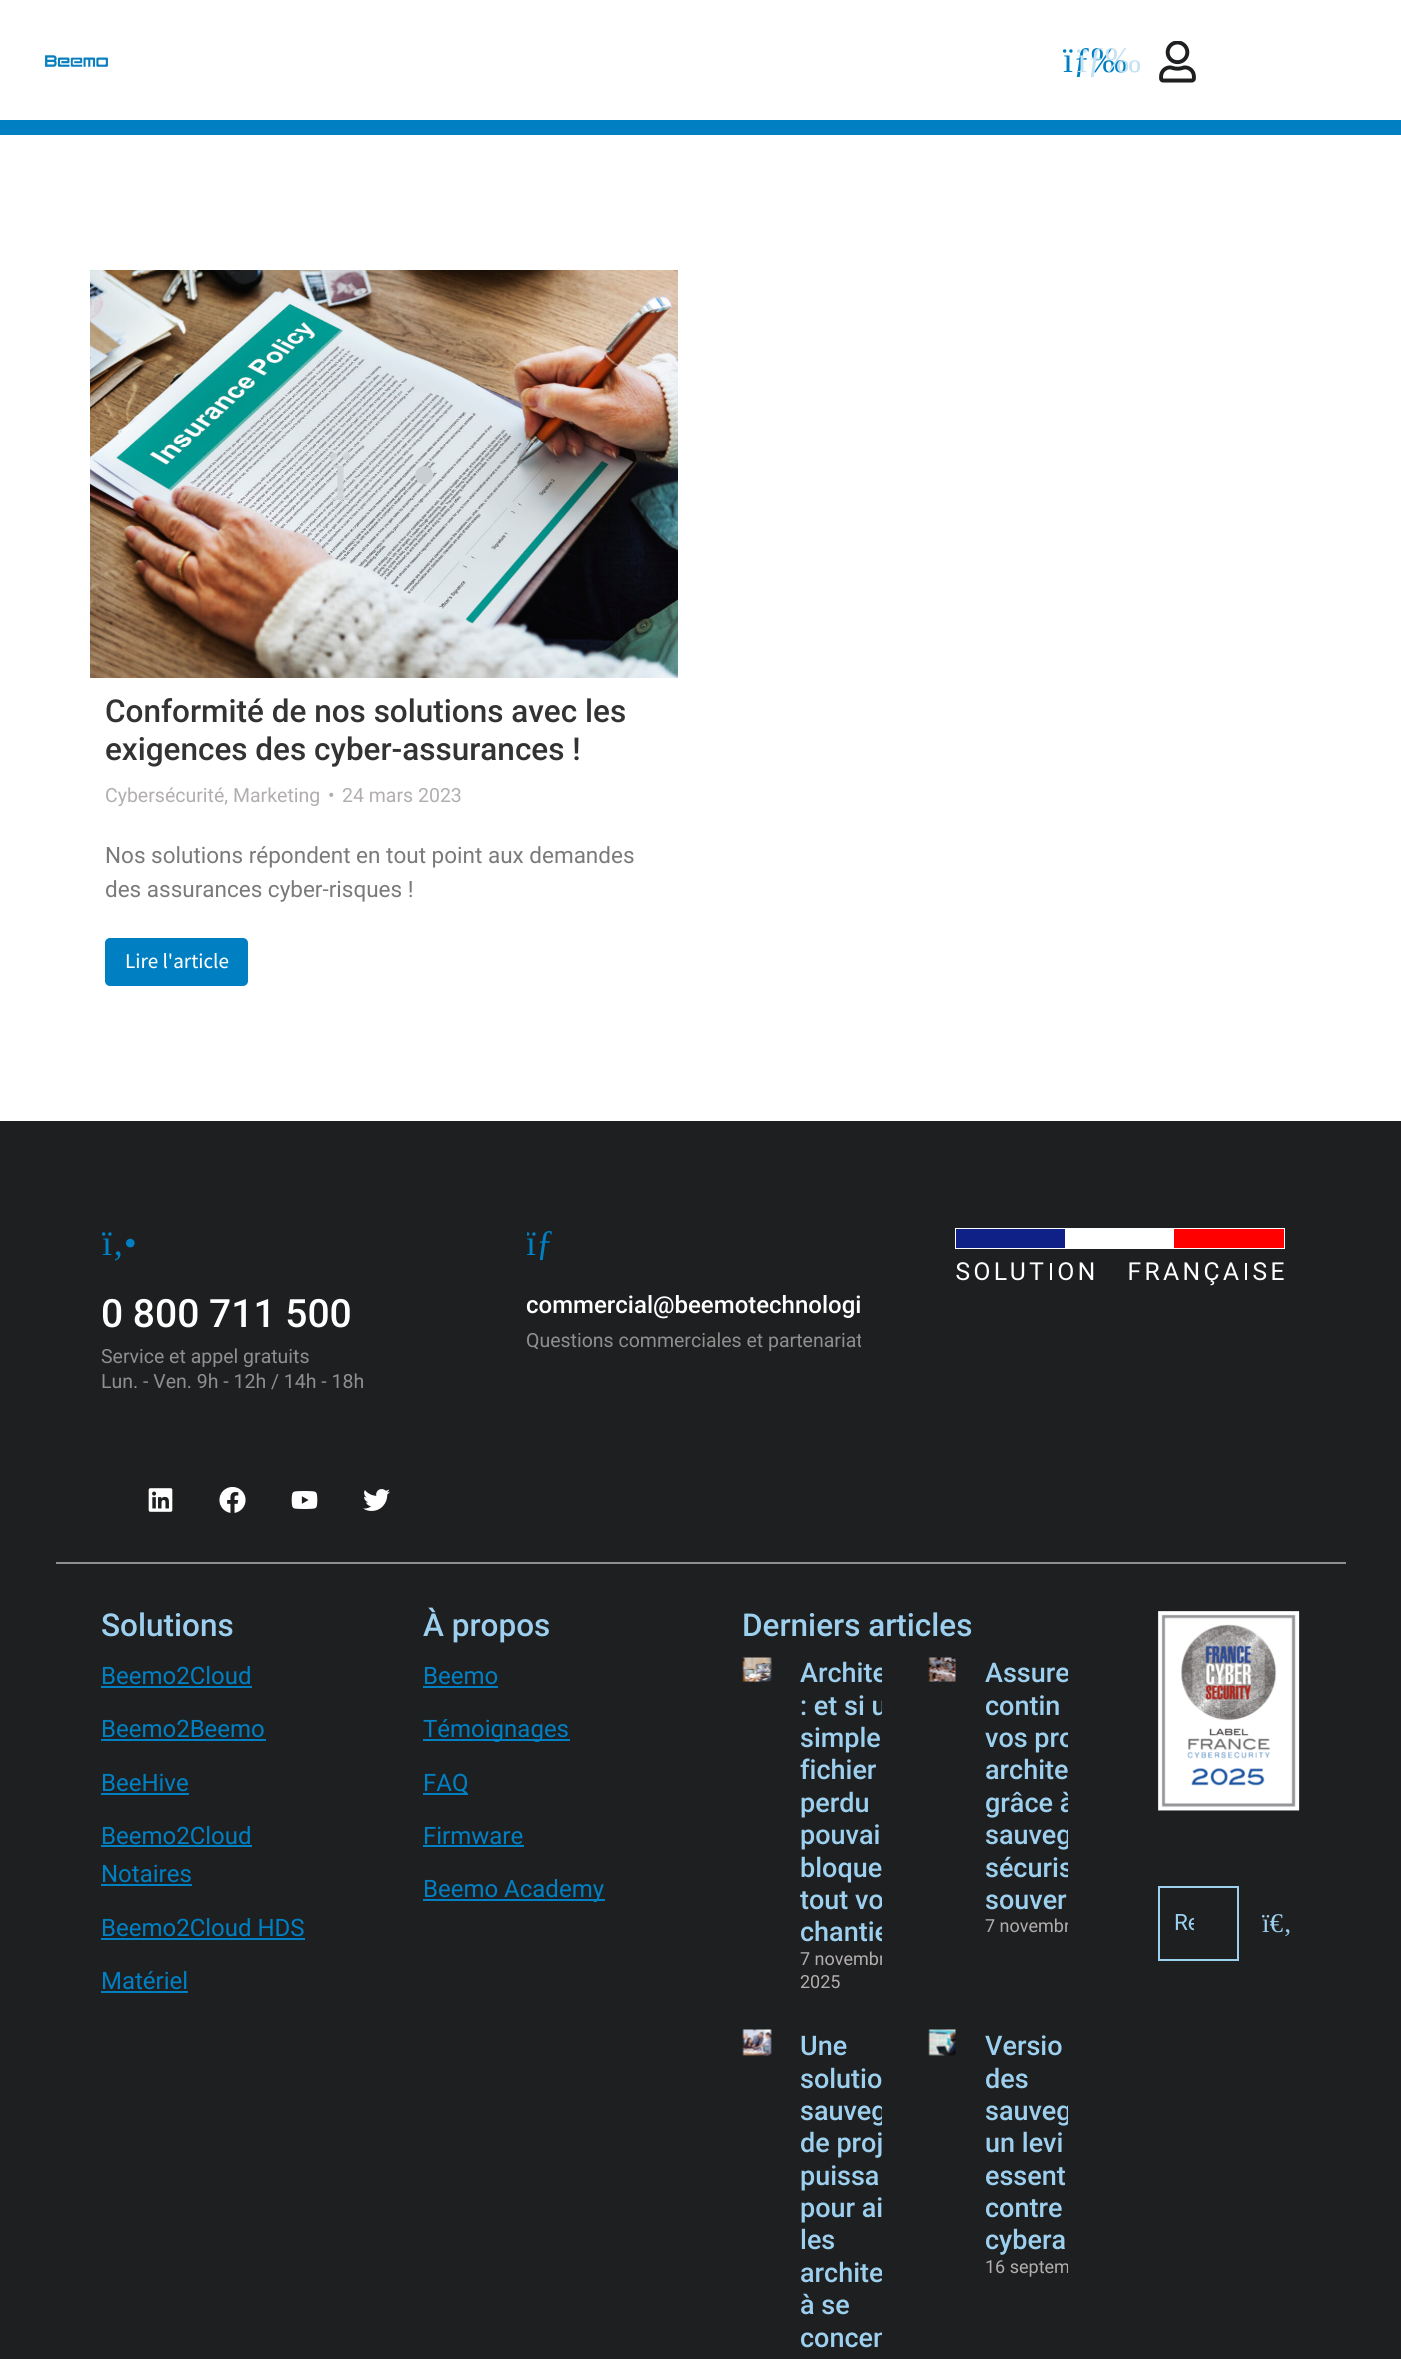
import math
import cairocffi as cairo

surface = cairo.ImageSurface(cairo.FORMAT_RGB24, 1401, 2359)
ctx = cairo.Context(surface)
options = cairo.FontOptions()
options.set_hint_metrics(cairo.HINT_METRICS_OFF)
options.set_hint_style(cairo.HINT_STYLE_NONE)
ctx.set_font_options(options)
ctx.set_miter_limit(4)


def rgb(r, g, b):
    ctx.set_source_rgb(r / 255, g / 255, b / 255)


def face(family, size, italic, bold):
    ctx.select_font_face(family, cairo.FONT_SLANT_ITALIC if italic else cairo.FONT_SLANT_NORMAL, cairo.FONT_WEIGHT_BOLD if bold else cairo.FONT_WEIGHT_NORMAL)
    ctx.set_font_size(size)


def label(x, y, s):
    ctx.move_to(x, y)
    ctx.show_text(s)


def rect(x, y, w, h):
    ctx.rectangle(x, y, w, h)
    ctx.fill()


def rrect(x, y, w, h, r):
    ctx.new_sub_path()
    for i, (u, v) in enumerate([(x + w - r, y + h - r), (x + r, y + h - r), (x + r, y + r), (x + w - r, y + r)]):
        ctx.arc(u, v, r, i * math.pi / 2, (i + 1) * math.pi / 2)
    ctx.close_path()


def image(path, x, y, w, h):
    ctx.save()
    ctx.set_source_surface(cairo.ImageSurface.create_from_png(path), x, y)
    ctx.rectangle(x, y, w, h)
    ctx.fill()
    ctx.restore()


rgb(255, 255, 255)
ctx.paint()
image('image0.png', 45, 55, 63, 12)
face('Liberation Serif', 36, 0, 0)
rgb(0, 128, 195)
label(1063, 72, 'ïƒ‰')
rgb(197, 226, 241)
label(1077, 72, 'ïƒ‰')
image('image1.png', 1159, 41, 37, 42)
rgb(0, 128, 195)
rect(0, 120, 1401, 15)
image('image2.png', 90, 270, 588, 408)
face('Liberation Serif', 75, 0, 0)
rgb(206, 212, 215)
label(330, 500, 'ï')
rgb(200, 206, 209)
label(411, 500, '•')
face('Roboto Medium', 31.5, 0, 0)
rgb(51, 51, 51)
label(105, 722, 'Conformité de nos solutions avec les')
label(105, 760, 'exigences des cyber-assurances !')
face('Roboto', 19.5, 0, 0)
rgb(178, 174, 174)
label(105, 802, 'Cybersécurité, Marketing')
label(328, 802, '•')
label(342, 802, '24 mars 2023')
face('Roboto', 22.5, 0, 0)
rgb(122, 122, 122)
label(105, 863, 'Nos solutions répondent en tout point aux demandes')
label(105, 897, 'des assurances cyber-risques !')
rgb(0, 128, 195)
rrect(105, 938, 143, 48, 5)
ctx.fill()
face('Assistant Medium', 21, 0, 0)
rgb(255, 255, 255)
label(125, 968, 'Lire l\'article')
rgb(30, 31, 32)
rect(0, 1121, 1401, 1238)
face('Liberation Serif', 36, 0, 0)
rgb(0, 128, 195)
label(102, 1255, 'ï‚•')
face('Roboto Medium', 39, 0, 0)
rgb(255, 255, 255)
label(101, 1327, '0 800 711 500')
face('Roboto', 19.5, 0, 0)
rgb(143, 143, 144)
label(101, 1363, 'Service et appel gratuits')
label(101, 1388, 'Lun. - Ven. 9h - 12h / 14h - 18h')
ctx.save()
ctx.rectangle(527, 1226, 334, 129)
ctx.clip()
face('Liberation Serif', 36, 0, 0)
rgb(0, 128, 195)
label(526, 1255, 'ïƒ')
ctx.restore()
face('Roboto Medium', 24, 0, 0)
rgb(255, 255, 255)
label(526, 1313, 'commercial@beemotechnologi')
ctx.save()
ctx.rectangle(527, 1226, 334, 129)
ctx.clip()
face('Roboto', 19.5, 0, 0)
rgb(143, 143, 144)
label(526, 1347, 'Questions commerciales et partenariat')
ctx.restore()
image('image3.png', 955, 1228, 330, 58)
image('image4.png', 148, 1488, 25, 24)
image('image5.png', 219, 1487, 27, 26)
image('image6.png', 291, 1491, 27, 18)
image('image7.png', 363, 1489, 27, 22)
rgb(143, 143, 144)
rect(56, 1562, 1290, 2)
face('Roboto Medium', 31.5, 0, 0)
rgb(157, 207, 239)
label(101, 1636, 'Solutions')
face('Roboto', 24, 0, 0)
rgb(0, 128, 195)
label(101, 1684, 'Beemo2Cloud')
rect(101, 1686, 151, 2)
label(101, 1737, 'Beemo2Beemo')
rect(101, 1739, 165, 2)
label(101, 1791, 'BeeHive')
rect(101, 1793, 88, 2)
label(101, 1844, 'Beemo2Cloud')
rect(101, 1845, 151, 2)
label(101, 1882, 'Notaires')
rect(101, 1884, 91, 2)
label(101, 1936, 'Beemo2Cloud HDS')
rect(101, 1938, 204, 2)
label(101, 1989, 'Matériel')
rect(101, 1991, 87, 2)
face('Roboto Medium', 31.5, 0, 0)
rgb(157, 207, 239)
label(423, 1636, 'À propos')
face('Roboto', 24, 0, 0)
rgb(0, 128, 195)
label(423, 1684, 'Beemo')
rect(423, 1686, 75, 2)
rect(423, 1739, 147, 2)
label(423, 1737, 'Témoignages')
rect(423, 1793, 45, 2)
label(423, 1791, 'FAQ')
label(423, 1844, 'Firmware')
rect(423, 1845, 101, 2)
rect(423, 1899, 182, 2)
label(423, 1897, 'Beemo Academy')
face('Roboto Medium', 31.5, 0, 0)
rgb(157, 207, 239)
label(742, 1636, 'Derniers articles')
image('image8.png', 742, 1657, 30, 25)
ctx.save()
ctx.rectangle(743, 1658, 139, 357)
ctx.clip()
face('Roboto Medium', 27, 0, 0)
label(800, 1682, 'Archite')
label(800, 1715, ': et si u')
ctx.restore()
face('Roboto Medium', 27, 0, 0)
label(800, 1747, 'simple')
label(800, 1779, 'fichier')
label(800, 1812, 'perdu')
label(800, 1844, 'pouvai')
label(800, 1877, 'bloque')
ctx.save()
ctx.rectangle(743, 1658, 139, 357)
ctx.clip()
label(800, 1909, 'tout vo')
label(800, 1941, 'chantie')
face('Roboto', 18, 0, 0)
rgb(178, 174, 174)
label(800, 1965, '7 novembr')
ctx.restore()
face('Roboto', 18, 0, 0)
rgb(178, 174, 174)
label(800, 1988, '2025')
image('image9.png', 928, 1657, 28, 25)
ctx.save()
ctx.rectangle(927, 1658, 141, 357)
ctx.clip()
face('Roboto Medium', 27, 0, 0)
rgb(157, 207, 239)
label(985, 1682, 'Assure')
ctx.restore()
face('Roboto Medium', 27, 0, 0)
rgb(157, 207, 239)
label(985, 1715, 'contin')
ctx.save()
ctx.rectangle(927, 1658, 141, 357)
ctx.clip()
label(985, 1747, 'vos pro')
ctx.restore()
label(985, 1779, 'archite')
ctx.save()
ctx.rectangle(927, 1658, 141, 357)
ctx.clip()
label(985, 1812, 'grâce à')
label(985, 1844, 'sauveg')
label(985, 1877, 'sécuris')
ctx.restore()
label(985, 1909, 'souver')
ctx.save()
ctx.rectangle(927, 1658, 141, 357)
ctx.clip()
face('Roboto', 18, 0, 0)
rgb(178, 174, 174)
label(985, 1932, '7 novembr')
ctx.restore()
image('image10.png', 742, 2029, 30, 27)
label(800, 2055, 'Une')
label(800, 2088, 'solutio')
ctx.save()
ctx.rectangle(743, 2030, 139, 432)
ctx.clip()
label(800, 2120, 'sauveg')
ctx.restore()
label(800, 2152, 'de proj')
label(800, 2185, 'puissa')
label(800, 2217, 'pour ai')
label(800, 2249, 'les')
ctx.save()
ctx.rectangle(743, 2030, 139, 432)
ctx.clip()
label(800, 2282, 'archite')
ctx.restore()
label(800, 2314, 'à se')
ctx.save()
ctx.rectangle(743, 2030, 139, 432)
ctx.clip()
label(800, 2347, 'concen')
ctx.restore()
image('image11.png', 928, 2029, 28, 27)
label(985, 2055, 'Versio')
label(985, 2088, 'des')
ctx.save()
ctx.rectangle(927, 2030, 141, 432)
ctx.clip()
label(985, 2120, 'sauveg')
ctx.restore()
label(985, 2152, 'un levi')
label(985, 2185, 'essent')
label(985, 2217, 'contre')
label(985, 2249, 'cybera')
ctx.save()
ctx.rectangle(927, 2030, 141, 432)
ctx.clip()
face('Roboto', 18, 0, 0)
rgb(178, 174, 174)
label(985, 2273, '16 septem')
ctx.restore()
image('image12.png', 1158, 1611, 142, 200)
ctx.rectangle(1159, 1887, 79, 73)
ctx.stroke()
ctx.save()
ctx.rectangle(1175, 1910, 19, 27)
ctx.clip()
face('Roboto', 22.5, 0, 0)
label(1174, 1930, 'Re')
ctx.restore()
face('Liberation Serif', 27, 0, 0)
label(1262, 1932, 'ï€‚')
surface.write_to_png('render.png')
